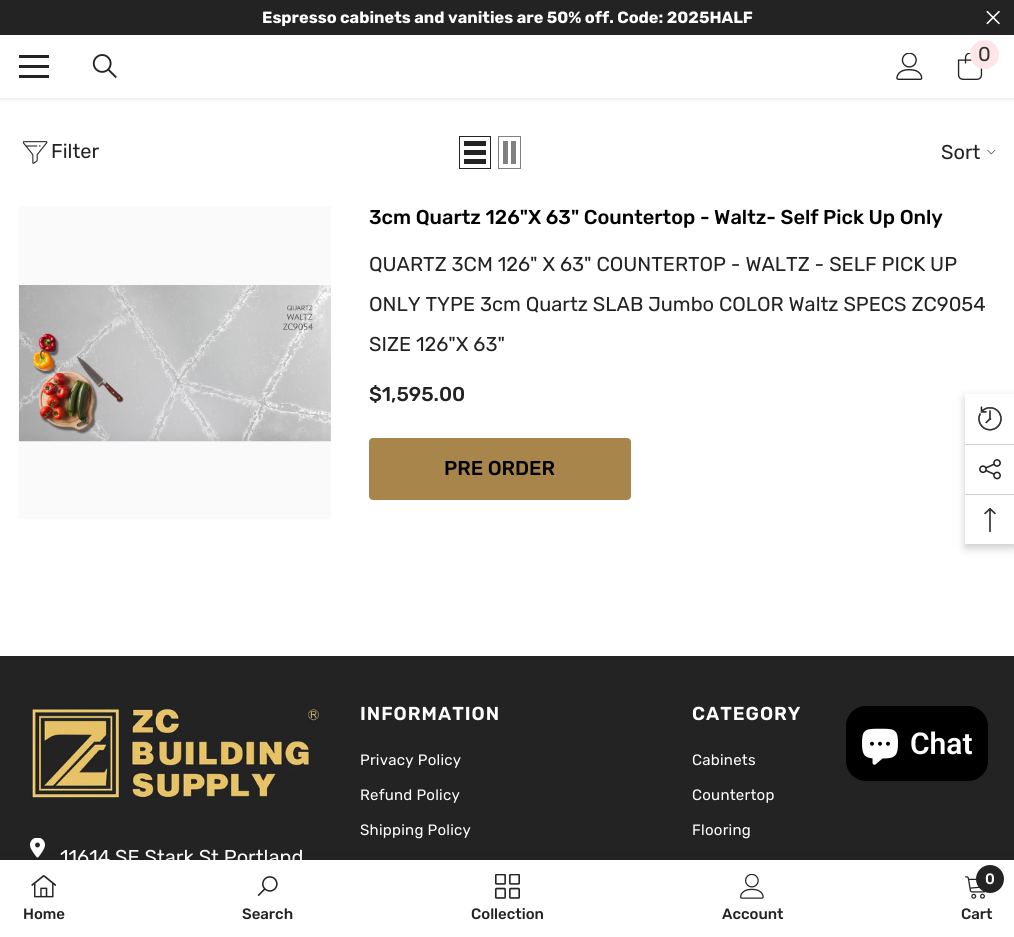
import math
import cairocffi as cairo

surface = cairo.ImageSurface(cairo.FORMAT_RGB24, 1014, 937)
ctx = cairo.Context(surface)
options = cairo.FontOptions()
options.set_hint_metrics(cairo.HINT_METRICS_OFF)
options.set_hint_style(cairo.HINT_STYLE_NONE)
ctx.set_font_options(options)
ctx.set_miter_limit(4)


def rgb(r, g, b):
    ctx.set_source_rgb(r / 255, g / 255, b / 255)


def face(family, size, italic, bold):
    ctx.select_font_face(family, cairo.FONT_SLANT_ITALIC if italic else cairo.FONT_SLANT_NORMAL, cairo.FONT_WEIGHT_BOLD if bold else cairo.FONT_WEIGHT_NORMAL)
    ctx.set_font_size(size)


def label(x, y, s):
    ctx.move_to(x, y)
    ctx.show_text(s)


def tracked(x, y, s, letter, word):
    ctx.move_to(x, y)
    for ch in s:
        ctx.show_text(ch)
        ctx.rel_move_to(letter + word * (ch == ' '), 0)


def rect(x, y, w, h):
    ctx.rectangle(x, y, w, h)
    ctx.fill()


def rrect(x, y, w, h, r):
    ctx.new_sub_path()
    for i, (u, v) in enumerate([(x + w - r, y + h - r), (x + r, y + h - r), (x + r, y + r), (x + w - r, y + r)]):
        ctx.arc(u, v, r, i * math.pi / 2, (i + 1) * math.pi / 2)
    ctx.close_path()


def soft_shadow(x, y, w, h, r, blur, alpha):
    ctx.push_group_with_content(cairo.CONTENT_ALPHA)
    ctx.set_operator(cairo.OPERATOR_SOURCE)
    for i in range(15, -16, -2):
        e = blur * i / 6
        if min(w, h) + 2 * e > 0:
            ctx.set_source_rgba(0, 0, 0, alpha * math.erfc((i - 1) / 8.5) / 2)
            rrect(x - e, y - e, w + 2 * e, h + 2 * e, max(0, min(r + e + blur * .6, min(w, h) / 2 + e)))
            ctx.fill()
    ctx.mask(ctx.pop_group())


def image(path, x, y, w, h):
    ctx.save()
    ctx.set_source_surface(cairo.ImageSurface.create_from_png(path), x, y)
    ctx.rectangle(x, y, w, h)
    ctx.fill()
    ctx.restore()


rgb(255, 255, 255)
ctx.paint()
rgb(35, 35, 35)
rect(0, 0, 1014, 35)
face('Rubik', 16.25, 0, 1)
rgb(255, 255, 255)
label(262, 23, 'Espresso cabinets and vanities are 50% off. Code: 2025HALF')
image('image0.png', 986, 10, 14, 15)
rgb(0, 0, 0)
soft_shadow(0, 36, 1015, 63, 0, 2, 0.1)
rgb(255, 255, 255)
rect(0, 35, 1014, 63)
rgb(35, 35, 35)
rect(19, 65, 30, 3)
rect(19, 55, 30, 3)
rect(19, 75, 30, 3)
image('image1.png', 92, 54, 25, 25)
image('image2.png', 896, 53, 27, 27)
image('image3.png', 957, 53, 26, 27)
rgb(255, 229, 232)
ctx.arc(984.5, 54.5, 14.5, 0, 2 * math.pi)
ctx.fill()
face('Rubik', 20, 0, 0)
rgb(50, 50, 50)
label(978, 61, '0')
image('image4.png', 23, 141, 25, 23)
rgb(35, 35, 35)
label(51, 158, 'Filter')
ctx.rectangle(459.5, 136.5, 31, 32)
ctx.set_line_width(1)
ctx.stroke()
rect(464, 159, 22, 5)
rect(464, 150, 22, 5)
rect(464, 141, 22, 5)
ctx.rectangle(498.5, 136.5, 22, 32)
rgb(128, 128, 128)
ctx.stroke()
rect(511, 141, 5, 23)
rect(503, 141, 5, 23)
rgb(35, 35, 35)
label(941, 159, 'Sort')
image('image5.png', 987, 150, 9, 5)
rgb(250, 250, 250)
rect(19, 206, 312, 313)
image('image6.png', 18, 285, 313, 157)
face('Rubik Medium', 20, 0, 0)
rgb(0, 0, 0)
label(369, 224, '3cm Quartz 126"X 63" Countertop - Waltz- Self Pick Up Only')
face('Rubik', 20, 0, 0)
rgb(35, 35, 35)
label(369, 271, 'QUARTZ 3CM 126" X 63" COUNTERTOP - WALTZ - SELF PICK UP')
label(369, 311, 'ONLY TYPE 3cm Quartz SLAB Jumbo COLOR Waltz SPECS ZC9054')
label(369, 351, 'SIZE 126"X 63"')
face('Rubik Medium', 20, 0, 0)
label(369, 401, '$1,595.00')
rgb(168, 133, 75)
rrect(369.5, 438.5, 261, 61, 3.5)
ctx.fill_preserve()
ctx.stroke()
rgb(0, 0, 0)
label(444, 475, 'PRE ORDER')
rgb(35, 35, 35)
rect(0, 656, 1014, 204)
face('Rubik SemiBold', 18.75, 0, 0)
rgb(255, 255, 255)
tracked(360, 720, 'INFORMATION', 1, 0)
face('Rubik', 15, 0, 0)
tracked(360, 765, 'Privacy Policy', 0.25, 0)
tracked(360, 800, 'Refund Policy', 0.25, 0)
tracked(360, 835, 'Shipping Policy', 0.25, 0)
face('Rubik SemiBold', 18.75, 0, 0)
tracked(692, 720, 'CATEGORY', 1, 0)
face('Rubik', 15, 0, 0)
tracked(692, 765, 'Cabinets', 0.25, 0)
tracked(692, 800, 'Countertop', 0.25, 0)
tracked(692, 835, 'Flooring', 0.25, 0)
image('image7.png', 29, 704, 291, 95)
image('image8.png', 30, 838, 15, 20)
face('Rubik', 20, 0, 0)
label(60, 864, '11614 SE Stark St Portland')
rgb(0, 0, 0)
soft_shadow(0, 860, 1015, 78, 0, 5.5, 0.12)
rgb(255, 255, 255)
rect(0, 860, 1014, 77)
image('image9.png', 31, 875, 25, 23)
face('Rubik Medium', 15, 0, 0)
rgb(35, 35, 35)
label(23, 919, 'Home')
image('image10.png', 257, 876, 21, 21)
label(242, 919, 'Search')
image('image11.png', 495, 874, 25, 25)
label(471, 919, 'Collection')
image('image12.png', 740, 874, 24, 25)
label(722, 919, 'Account')
image('image13.png', 965, 876, 20, 23)
ctx.arc(990, 879, 14, 0, 2 * math.pi)
ctx.fill()
rgb(255, 255, 255)
label(985, 884, '0')
rgb(35, 35, 35)
label(961, 919, 'Cart')
rgb(0, 0, 0)
soft_shadow(965, 398, 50, 150, 0, 4.5, 0.2)
rgb(255, 255, 255)
rect(965, 394, 49, 150)
image('image14.png', 978, 406, 24, 25)
rgb(204, 204, 204)
rect(965, 444, 49, 1)
image('image15.png', 979, 459, 22, 21)
rect(965, 494, 49, 1)
image('image16.png', 984, 508, 12, 25)
rgb(0, 0, 0)
rrect(846, 706, 142, 75, 20)
ctx.fill()
image('image17.png', 862, 728, 36, 37)
face('Roboto SemiBold', 30, 0, 0)
rgb(255, 255, 255)
label(910, 754, 'Chat')
surface.write_to_png('render.png')
